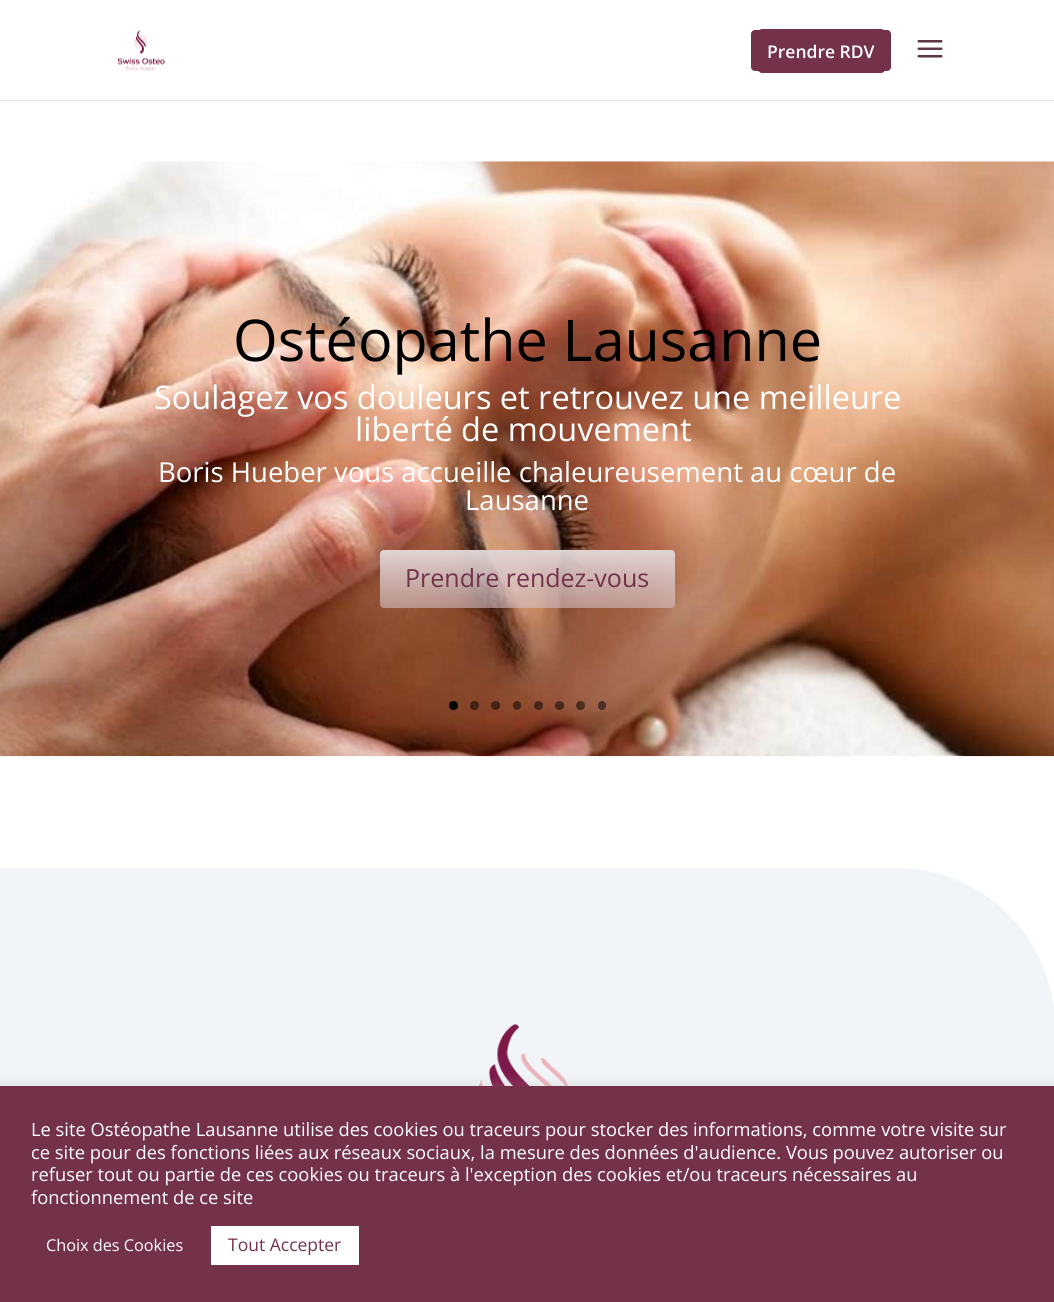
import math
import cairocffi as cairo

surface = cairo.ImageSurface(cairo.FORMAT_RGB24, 1054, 1302)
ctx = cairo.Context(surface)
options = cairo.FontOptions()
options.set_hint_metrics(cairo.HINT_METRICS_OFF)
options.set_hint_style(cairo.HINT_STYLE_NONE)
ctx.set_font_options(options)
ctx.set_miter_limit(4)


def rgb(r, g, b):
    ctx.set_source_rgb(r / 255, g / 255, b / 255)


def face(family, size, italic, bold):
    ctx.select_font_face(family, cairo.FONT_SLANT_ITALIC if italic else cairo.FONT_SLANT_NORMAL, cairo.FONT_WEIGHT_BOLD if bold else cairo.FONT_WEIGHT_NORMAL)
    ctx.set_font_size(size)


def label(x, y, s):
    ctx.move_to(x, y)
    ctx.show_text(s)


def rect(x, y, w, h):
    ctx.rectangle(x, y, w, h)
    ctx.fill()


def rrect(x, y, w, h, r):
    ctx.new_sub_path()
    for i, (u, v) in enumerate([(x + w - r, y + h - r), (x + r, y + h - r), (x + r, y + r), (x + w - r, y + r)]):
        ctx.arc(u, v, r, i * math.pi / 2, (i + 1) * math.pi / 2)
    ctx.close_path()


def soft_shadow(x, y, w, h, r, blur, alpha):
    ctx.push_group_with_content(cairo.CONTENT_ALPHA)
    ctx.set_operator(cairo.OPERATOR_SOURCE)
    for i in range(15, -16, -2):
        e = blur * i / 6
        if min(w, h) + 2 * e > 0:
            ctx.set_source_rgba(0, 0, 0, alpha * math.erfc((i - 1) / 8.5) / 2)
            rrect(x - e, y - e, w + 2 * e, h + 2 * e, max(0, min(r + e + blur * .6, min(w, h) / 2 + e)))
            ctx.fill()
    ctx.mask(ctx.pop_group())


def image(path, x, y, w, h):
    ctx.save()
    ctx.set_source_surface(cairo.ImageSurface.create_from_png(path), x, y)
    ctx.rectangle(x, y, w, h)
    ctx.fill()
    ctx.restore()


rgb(255, 255, 255)
ctx.paint()
rgb(230, 230, 230)
rect(0, 100, 1054, 1)
image('image0.png', 117, 30, 48, 41)
rgb(115, 50, 74)
rrect(751, 30, 140, 41, 4)
ctx.fill()
rrect(758, 29, 127, 44, 4)
ctx.fill()
face('Open Sans SemiBold', 17.5, 0, 0)
rgb(255, 255, 255)
label(767, 58, 'Prendre RDV')
image('image1.png', 917, 40, 26, 18)
image('image2.png', 0, 161, 1054, 596)
face('Open Sans', 57.5, 0, 0)
rgb(0, 0, 0)
label(233, 361, 'Ostéopathe Lausanne')
face('Open Sans', 32.5, 0, 0)
rgb(255, 255, 255)
label(154, 409, 'Soulagez vos douleurs et retrouvez une meilleure')
label(355, 441, 'liberté de mouvement')
face('Open Sans', 27.5, 0, 0)
label(158, 482, 'Boris Hueber vous accueille chaleureusement au cœur de')
label(465, 510, 'Lausanne')
face('Open Sans', 25, 0, 0)
rgb(115, 50, 74)
label(405, 587, 'Prendre rendez-vous')
rgb(0, 0, 0)
ctx.new_path()
ctx.arc(453.5, 705.5, 4.5, 0, 2 * math.pi)
ctx.fill()
ctx.set_source_rgba(0, 0, 0, 0.5)
ctx.arc(474.5, 705.5, 4.5, 0, 2 * math.pi)
ctx.fill()
ctx.arc(495.5, 705.5, 4.5, 0, 2 * math.pi)
ctx.fill()
rrect(513, 701, 8, 9, 4)
ctx.fill()
ctx.arc(538.5, 705.5, 4.5, 0, 2 * math.pi)
ctx.fill()
ctx.arc(559.5, 705.5, 4.5, 0, 2 * math.pi)
ctx.fill()
ctx.arc(580.5, 705.5, 4.5, 0, 2 * math.pi)
ctx.fill()
rrect(598, 701, 8, 9, 4)
ctx.fill()
rgb(241, 245, 247)
ctx.new_path()
ctx.move_to(0, 868)
ctx.line_to(896, 868)
ctx.curve_to(984, 868, 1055, 939, 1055, 1027)
ctx.line_to(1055, 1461)
ctx.line_to(0, 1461)
ctx.close_path()
ctx.fill()
image('image3.png', 478, 1023, 90, 63)
rgb(172, 171, 171)
soft_shadow(0, 1085, 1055, 216, 0, 6, 0.3)
rgb(115, 50, 74)
rect(0, 1086, 1054, 216)
face('Open Sans', 18.33, 0, 0)
rgb(255, 255, 255)
label(31, 1136, 'Le site Ostéopathe Lausanne utilise des cookies ou traceurs pour stocker des informations, comme votre visite sur')
label(31, 1159, 'ce site pour des fonctions liées aux réseaux sociaux, la mesure des données d\'audience. Vous pouvez autoriser ou')
label(31, 1181, 'refuser tout ou partie de ces cookies ou traceurs à l\'exception des cookies et/ou traceurs nécessaires au')
label(31, 1204, 'fonctionnement de ce site')
face('Open Sans', 16.25, 0, 0)
label(46, 1251, 'Choix des Cookies')
rect(211, 1226, 148, 39)
face('Open Sans', 17.5, 0, 0)
rgb(115, 50, 74)
label(228, 1251, 'Tout Accepter')
surface.write_to_png('render.png')
